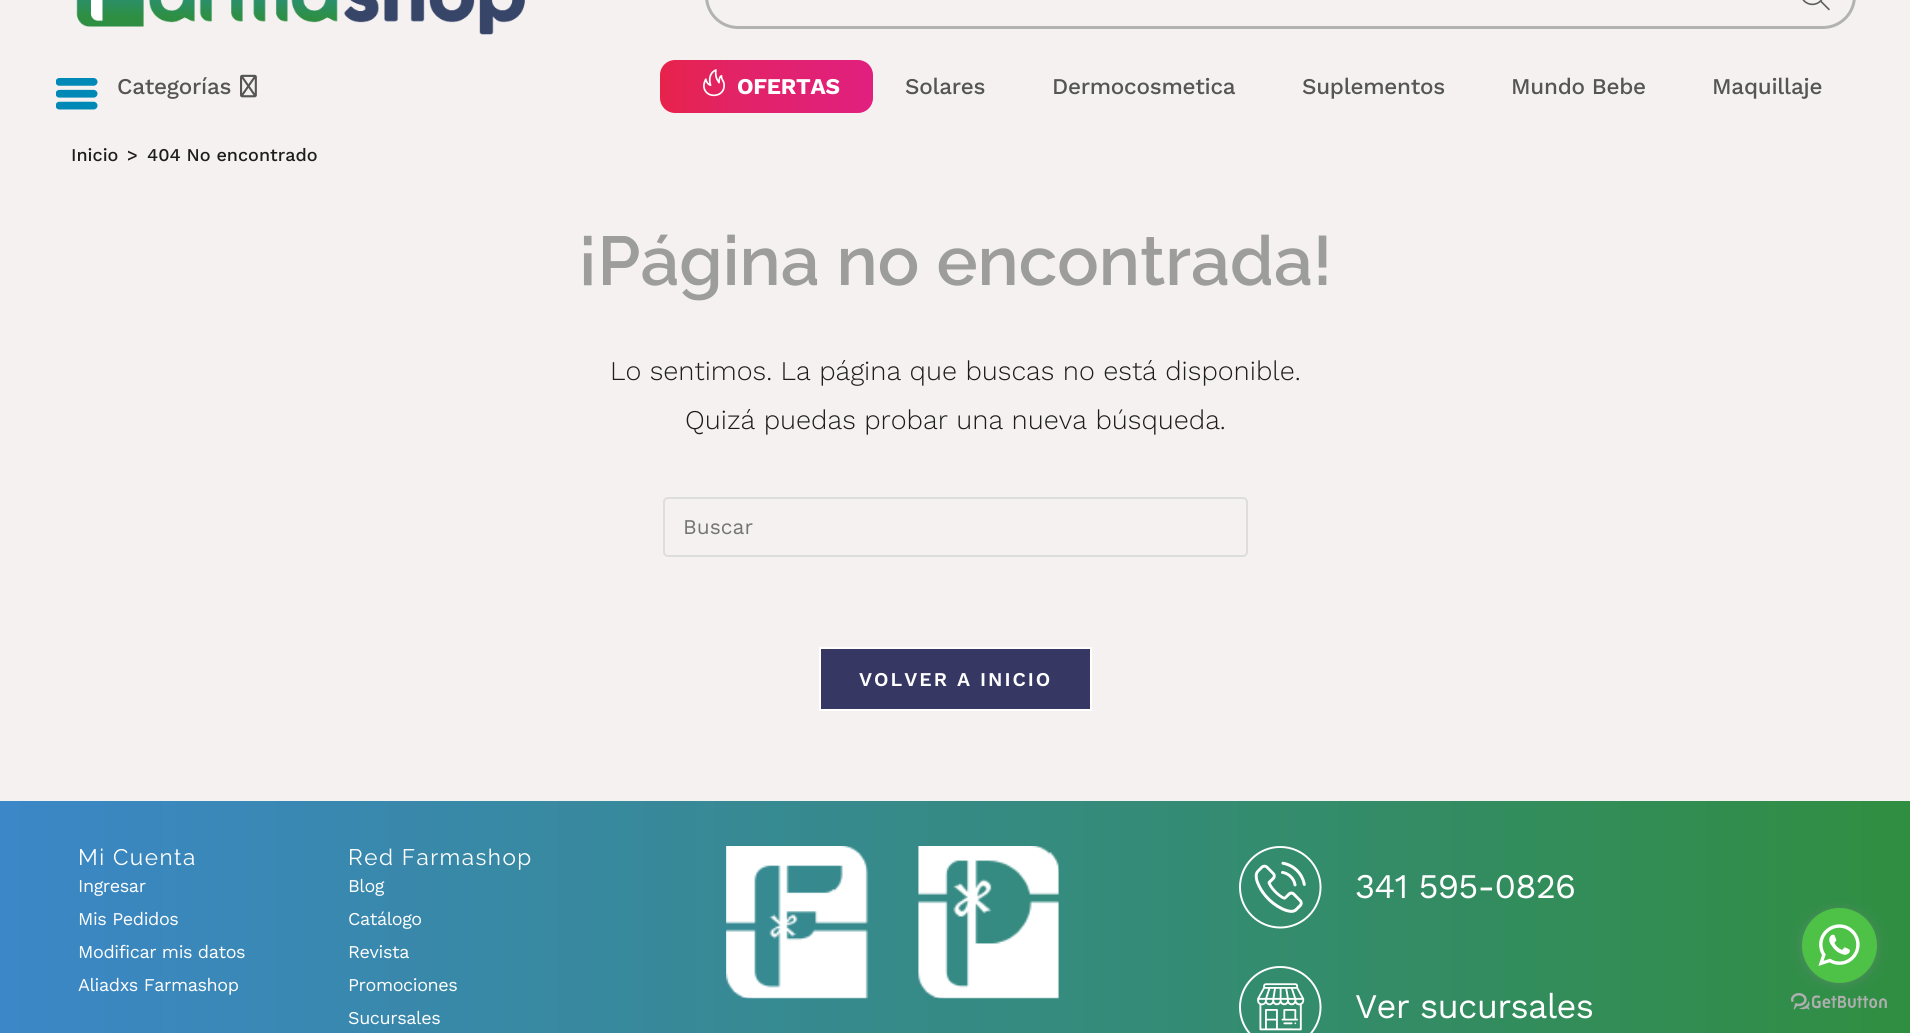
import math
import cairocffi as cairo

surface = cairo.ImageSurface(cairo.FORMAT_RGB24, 1910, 1033)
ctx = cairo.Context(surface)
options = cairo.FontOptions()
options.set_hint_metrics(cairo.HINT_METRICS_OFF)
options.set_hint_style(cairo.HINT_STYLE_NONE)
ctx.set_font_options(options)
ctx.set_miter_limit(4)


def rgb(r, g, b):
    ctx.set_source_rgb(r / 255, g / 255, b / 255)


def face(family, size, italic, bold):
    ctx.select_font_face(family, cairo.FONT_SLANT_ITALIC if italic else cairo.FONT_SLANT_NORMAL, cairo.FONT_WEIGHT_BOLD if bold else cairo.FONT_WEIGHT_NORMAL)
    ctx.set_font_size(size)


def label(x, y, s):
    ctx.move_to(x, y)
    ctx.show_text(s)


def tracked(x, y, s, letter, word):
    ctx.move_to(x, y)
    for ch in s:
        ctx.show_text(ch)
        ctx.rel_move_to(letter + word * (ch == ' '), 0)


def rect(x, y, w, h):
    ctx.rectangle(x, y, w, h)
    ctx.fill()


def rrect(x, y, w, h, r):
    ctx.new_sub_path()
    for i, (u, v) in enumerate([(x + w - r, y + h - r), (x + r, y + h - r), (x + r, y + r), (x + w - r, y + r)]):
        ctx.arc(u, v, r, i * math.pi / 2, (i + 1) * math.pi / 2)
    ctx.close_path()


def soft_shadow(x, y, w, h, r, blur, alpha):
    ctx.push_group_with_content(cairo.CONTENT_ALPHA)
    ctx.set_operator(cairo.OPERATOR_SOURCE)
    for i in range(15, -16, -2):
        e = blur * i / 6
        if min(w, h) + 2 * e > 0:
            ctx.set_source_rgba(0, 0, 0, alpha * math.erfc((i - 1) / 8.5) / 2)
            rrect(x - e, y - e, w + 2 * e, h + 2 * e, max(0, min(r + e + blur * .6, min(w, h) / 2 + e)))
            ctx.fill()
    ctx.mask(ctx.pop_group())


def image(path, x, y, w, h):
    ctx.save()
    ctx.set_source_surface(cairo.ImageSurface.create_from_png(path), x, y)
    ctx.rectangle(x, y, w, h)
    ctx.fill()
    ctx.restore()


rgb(245, 241, 241)
ctx.paint()
image('image0.png', 76, 0, 449, 35)
rrect(706.5, -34.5, 1148, 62, 31.5)
rgb(178, 178, 178)
ctx.set_line_width(3)
ctx.stroke()
image('image1.png', 1802, 0, 28, 11)
image('image2.png', 56, 78, 42, 32)
face('Work Sans Medium', 22.5, 0, 0)
rgb(85, 85, 85)
tracked(117, 94, 'Categorías', -0.25, 0)
image('image3.png', 240, 74, 17, 24)
gradient = cairo.LinearGradient(660, 86, 873, 86)
gradient.add_color_stop_rgba(0, 0.906, 0.137, 0.294, 1)
gradient.add_color_stop_rgba(0.35, 0.886, 0.137, 0.4, 1)
gradient.add_color_stop_rgba(1, 0.882, 0.122, 0.498, 1)
ctx.set_source(gradient)
rrect(660, 60, 213, 53, 15)
ctx.fill()
image('image4.png', 703, 69, 22, 28)
face('Work Sans', 22.5, 0, 1)
rgb(255, 255, 255)
tracked(737, 94, 'OFERTAS', -0.25, 0)
face('Work Sans Medium', 22.5, 0, 0)
rgb(85, 85, 85)
tracked(905, 94, 'Solares', -0.25, 0)
tracked(1052, 94, 'Dermocosmetica', -0.25, 0)
tracked(1302, 94, 'Suplementos', -0.25, 0)
tracked(1511, 94, 'Mundo Bebe', -0.25, 0)
tracked(1712, 94, 'Maquillaje', -0.25, 0)
face('Work Sans Medium', 18, 0, 0)
rgb(29, 29, 27)
label(71, 161, 'Inicio')
label(127, 161, '>')
label(147, 161, '404 No encontrado')
face('Raleway SemiBold', 69, 0, 0)
rgb(157, 157, 156)
label(578, 285, '¡Página no encontrada!')
face('Work Sans Light', 27, 0, 0)
rgb(29, 29, 27)
label(610, 380, 'Lo sentimos. La página que buscas no está disponible.')
label(685, 429, 'Quizá puedas probar una nueva búsqueda.')
rrect(664, 498, 583, 58, 4)
rgb(221, 221, 221)
ctx.set_line_width(2)
ctx.stroke()
face('Work Sans', 21, 0, 0)
rgb(117, 117, 117)
label(683, 534, 'Buscar')
rgb(54, 55, 99)
ctx.rectangle(820, 648, 271, 62)
ctx.fill_preserve()
rgb(255, 255, 255)
ctx.stroke()
face('Work Sans SemiBold', 19.5, 0, 0)
tracked(859, 686, 'VOLVER A INICIO', 2, 0)
gradient = cairo.LinearGradient(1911, 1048, 0, 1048)
gradient.add_color_stop_rgba(0, 0.188, 0.557, 0.255, 1)
gradient.add_color_stop_rgba(1, 0.231, 0.529, 0.784, 1)
ctx.set_source(gradient)
rect(0, 801, 1910, 232)
face('Raleway', 22.5, 0, 0)
rgb(255, 255, 255)
tracked(78, 865, 'Mi Cuenta', 1.5, 0)
face('Work Sans', 18, 0, 0)
tracked(78, 892, 'Ingresar', -0.4, 0)
tracked(78, 925, 'Mis Pedidos', -0.4, 0)
tracked(78, 958, 'Modificar mis datos', -0.4, 0)
tracked(78, 991, 'Aliadxs Farmashop', -0.4, 0)
face('Raleway', 22.5, 0, 0)
tracked(348, 865, 'Red Farmashop', 1.5, 0)
face('Work Sans', 18, 0, 0)
tracked(348, 892, 'Blog', -0.4, 0)
tracked(348, 925, 'Catálogo', -0.4, 0)
tracked(348, 958, 'Revista', -0.4, 0)
tracked(348, 991, 'Promociones', -0.4, 0)
tracked(348, 1024, 'Sucursales', -0.4, 0)
image('image5.png', 726, 846, 333, 153)
image('image6.png', 1239, 846, 83, 83)
face('Work Sans', 34.5, 0, 0)
tracked(1355, 898, '341 595-0826', -0.75, 0)
image('image7.png', 1239, 966, 83, 67)
tracked(1355, 1018, 'Ver sucursales', -0.75, 0)
image('image9.png', 1791, 993, 96, 17)
rgb(136, 136, 136)
soft_shadow(1802, 909, 75, 75, 37.5, 5, 0.4)
rgb(77, 194, 71)
ctx.arc(1839.5, 945.5, 37.5, 0, 2 * math.pi)
ctx.fill()
image('image8.png', 1818, 924, 42, 42)
surface.write_to_png('render.png')
